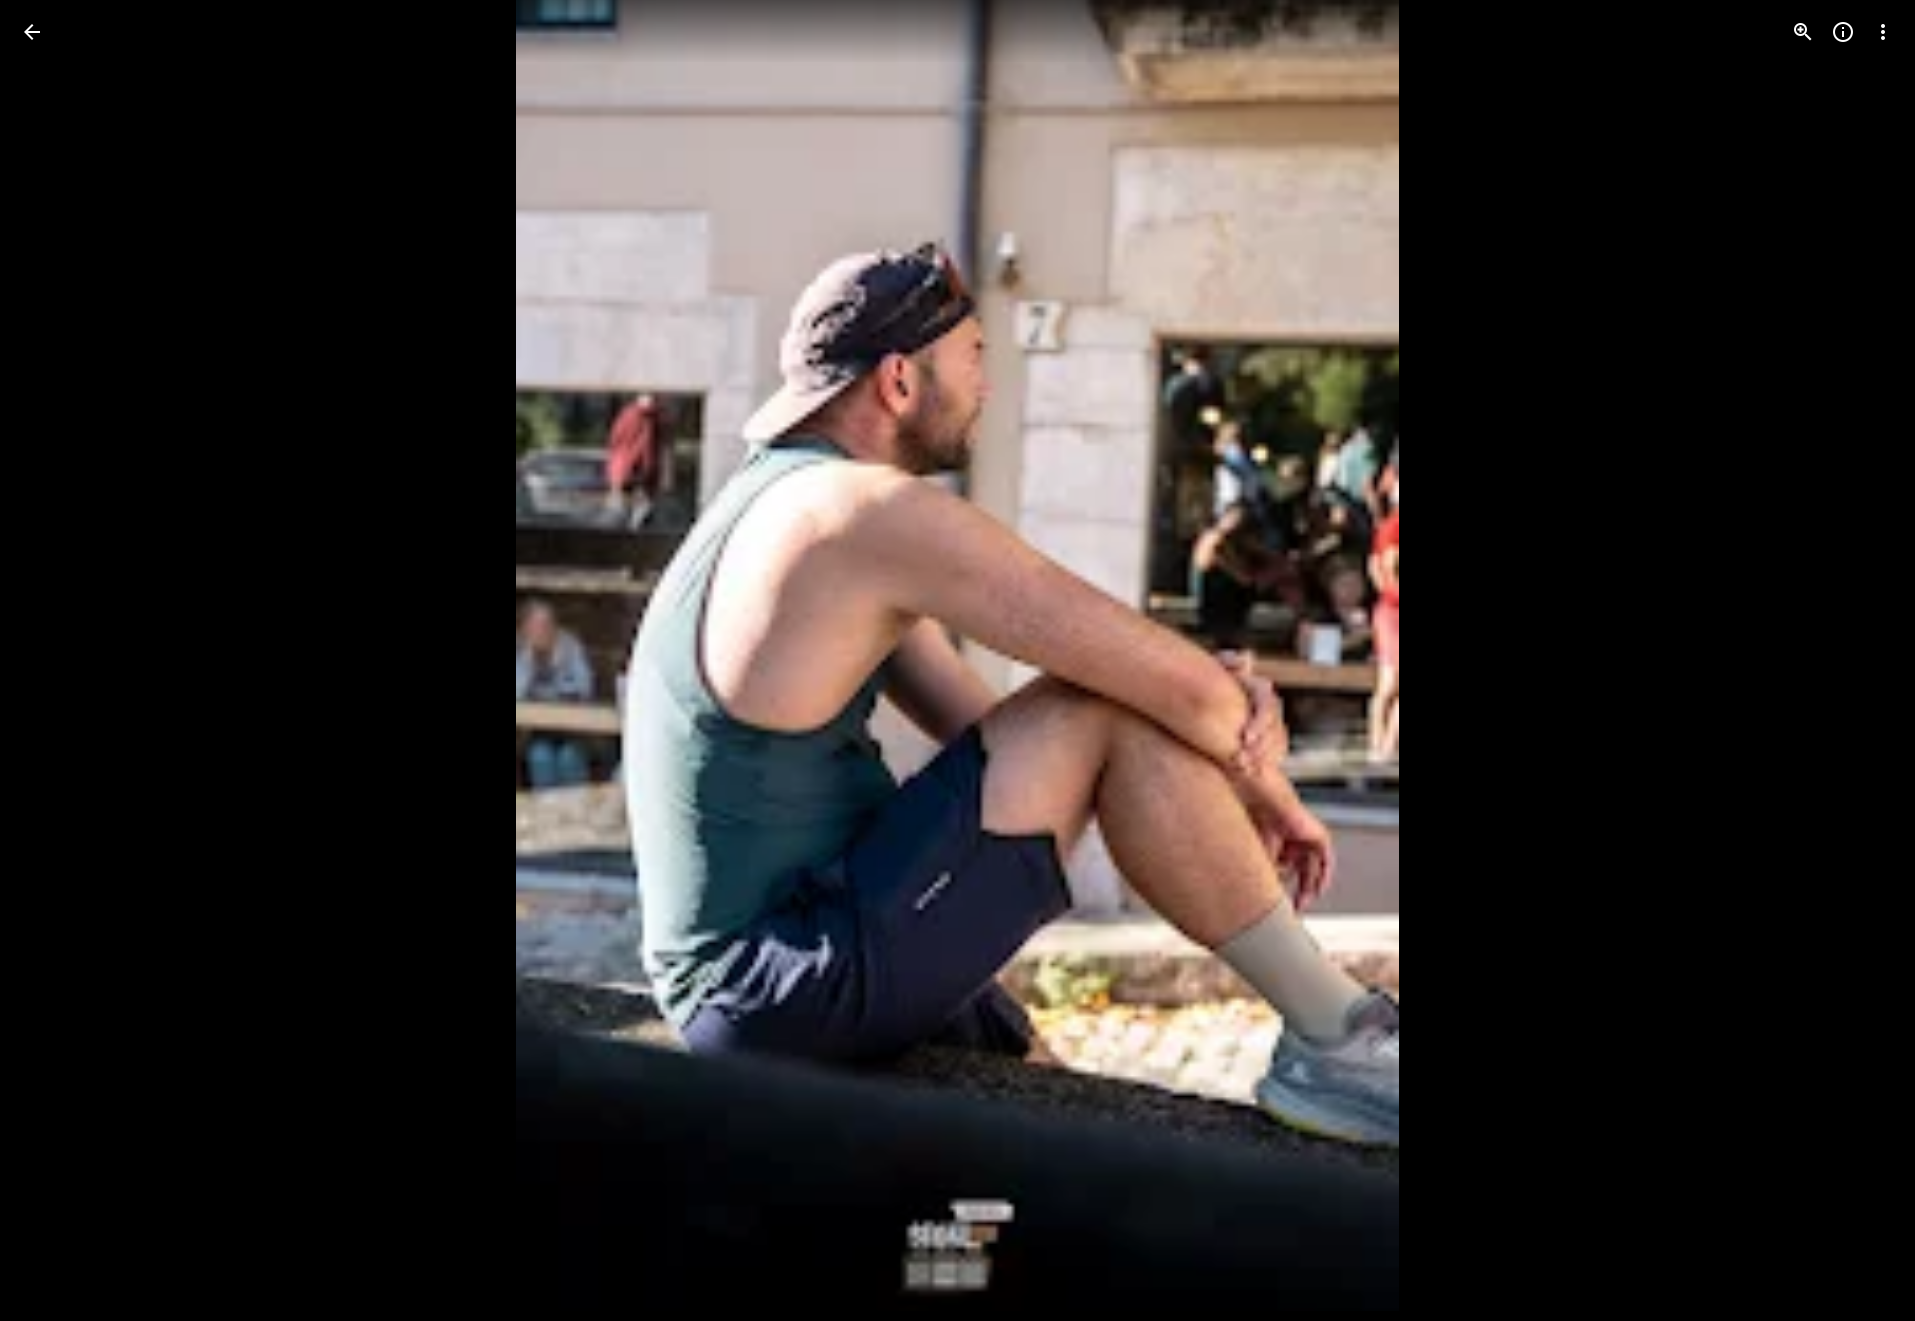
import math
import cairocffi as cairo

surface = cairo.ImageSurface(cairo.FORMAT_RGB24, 1915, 1321)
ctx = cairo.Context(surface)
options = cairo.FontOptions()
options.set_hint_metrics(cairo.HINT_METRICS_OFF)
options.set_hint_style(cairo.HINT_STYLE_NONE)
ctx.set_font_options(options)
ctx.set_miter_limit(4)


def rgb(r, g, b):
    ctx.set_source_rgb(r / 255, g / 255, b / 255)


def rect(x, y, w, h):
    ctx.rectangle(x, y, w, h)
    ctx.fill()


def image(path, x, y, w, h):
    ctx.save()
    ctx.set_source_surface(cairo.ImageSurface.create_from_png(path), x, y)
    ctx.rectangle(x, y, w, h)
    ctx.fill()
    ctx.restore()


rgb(0, 0, 0)
ctx.paint()
image('image4.png', 516, 0, 883, 1311)
gradient = cairo.LinearGradient(958, 0, 958, 64)
gradient.add_color_stop_rgba(0, 0, 0, 0, 0.6)
gradient.add_color_stop_rgba(1, 0, 0, 0, 0)
ctx.set_source(gradient)
rect(516, 0, 883, 62)
image('image0.png', 24, 24, 16, 16)
image('image1.png', 1794, 23, 18, 18)
image('image2.png', 1833, 22, 20, 20)
image('image3.png', 1881, 24, 4, 16)
surface.write_to_png('render.png')
